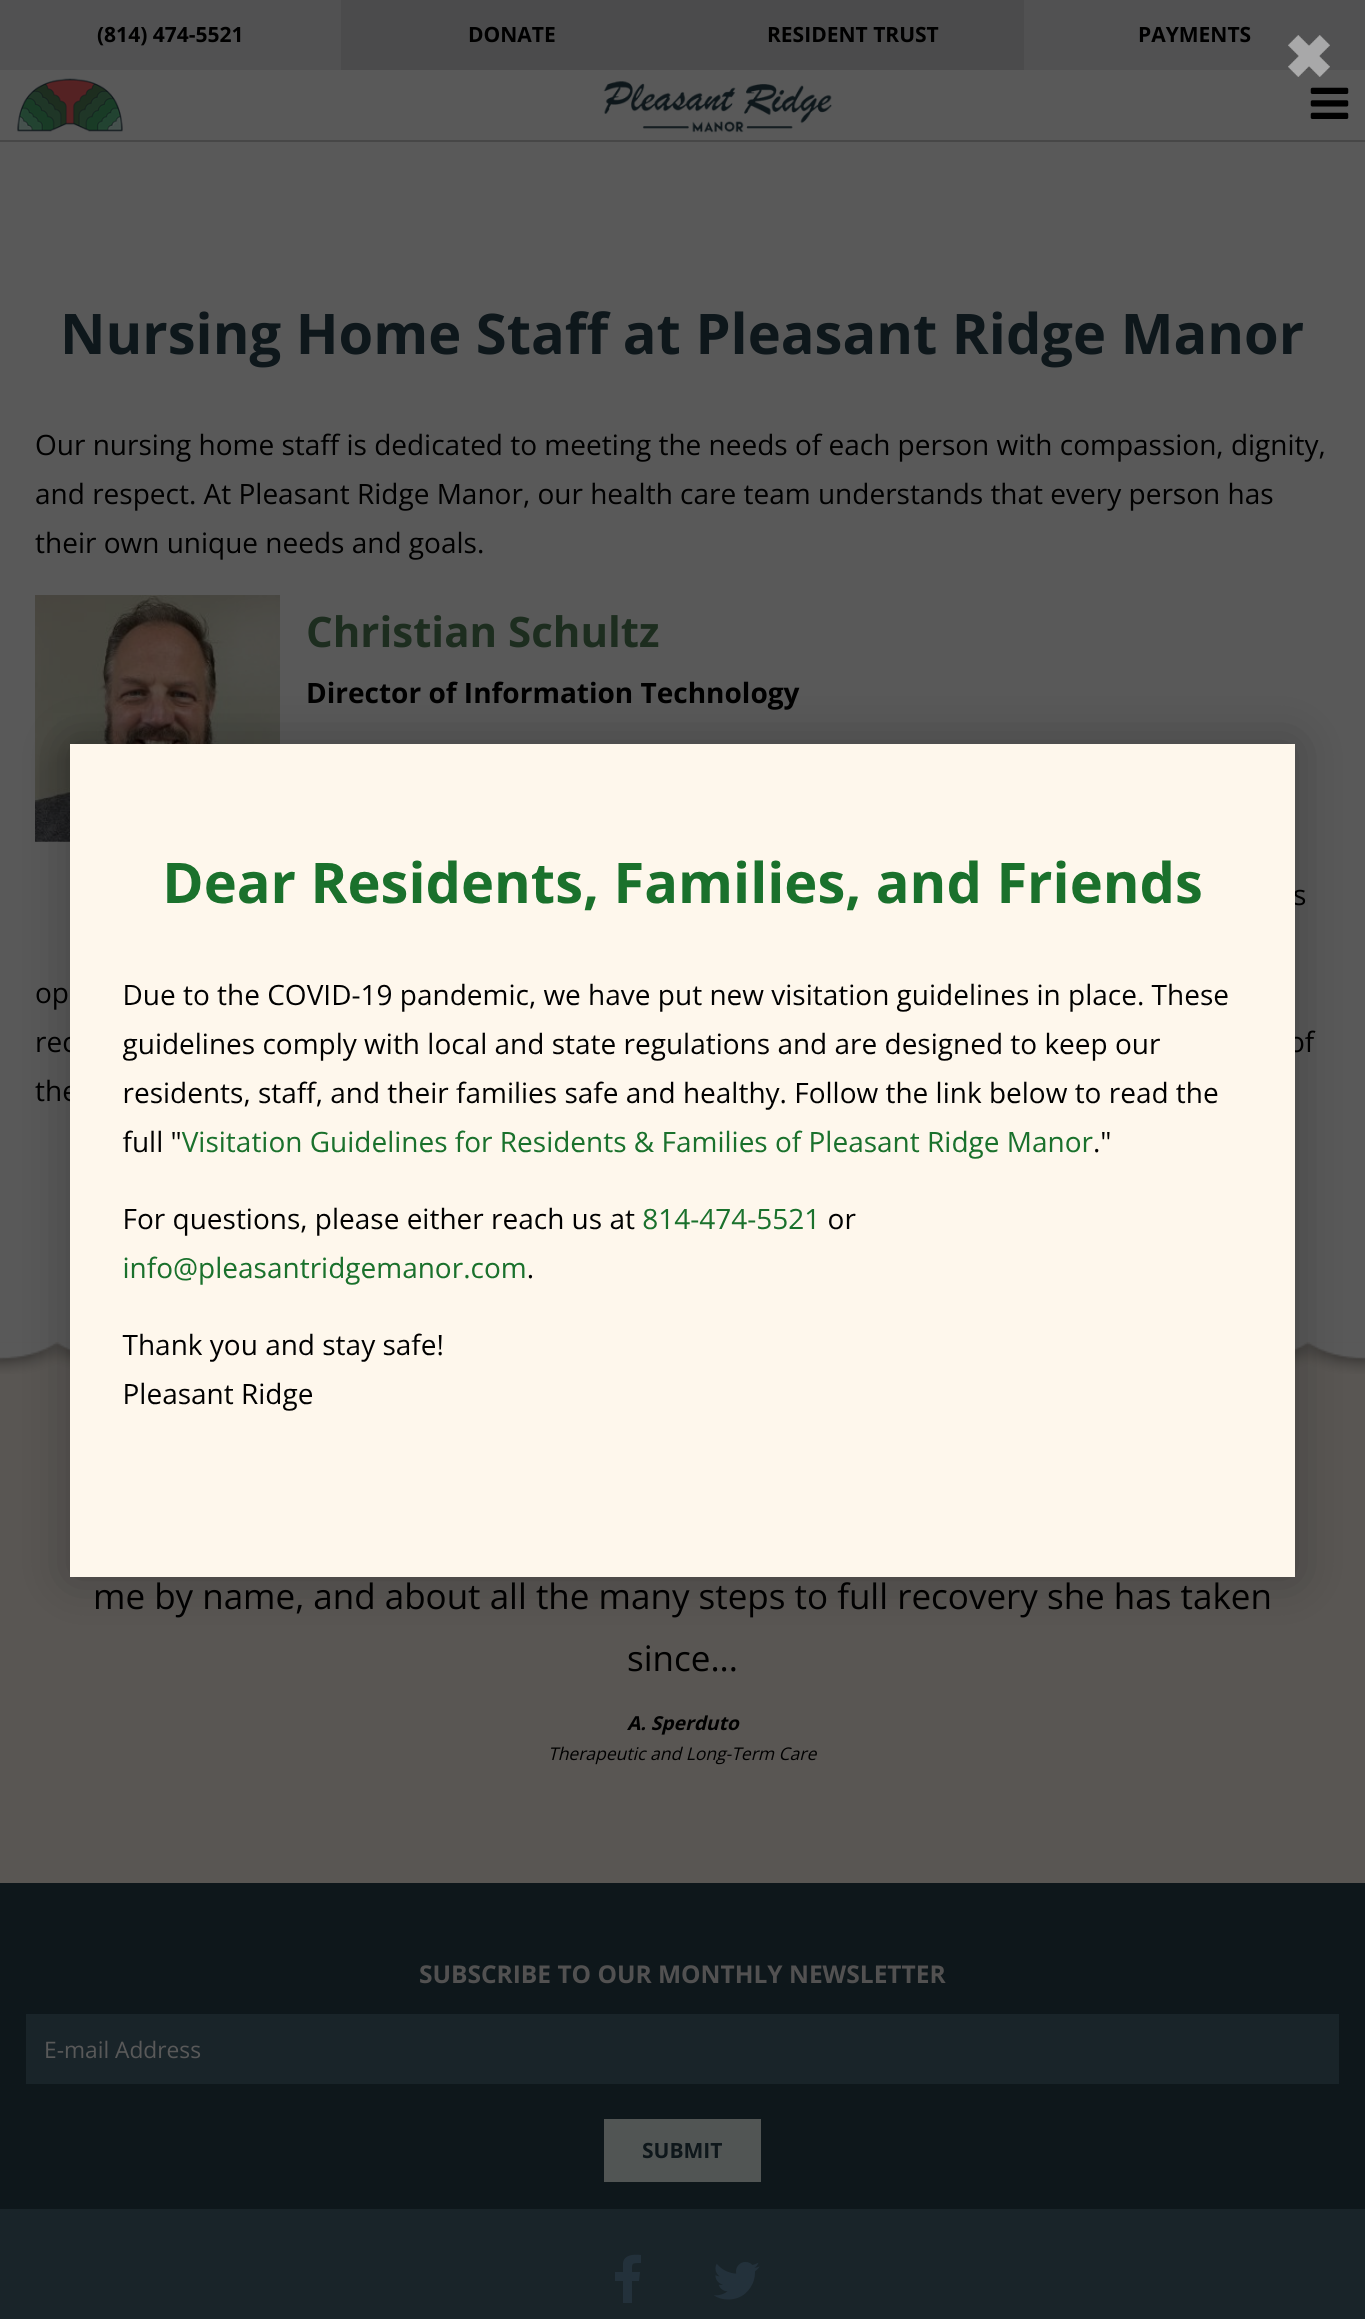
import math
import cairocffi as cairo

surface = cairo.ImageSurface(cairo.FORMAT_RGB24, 1365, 2319)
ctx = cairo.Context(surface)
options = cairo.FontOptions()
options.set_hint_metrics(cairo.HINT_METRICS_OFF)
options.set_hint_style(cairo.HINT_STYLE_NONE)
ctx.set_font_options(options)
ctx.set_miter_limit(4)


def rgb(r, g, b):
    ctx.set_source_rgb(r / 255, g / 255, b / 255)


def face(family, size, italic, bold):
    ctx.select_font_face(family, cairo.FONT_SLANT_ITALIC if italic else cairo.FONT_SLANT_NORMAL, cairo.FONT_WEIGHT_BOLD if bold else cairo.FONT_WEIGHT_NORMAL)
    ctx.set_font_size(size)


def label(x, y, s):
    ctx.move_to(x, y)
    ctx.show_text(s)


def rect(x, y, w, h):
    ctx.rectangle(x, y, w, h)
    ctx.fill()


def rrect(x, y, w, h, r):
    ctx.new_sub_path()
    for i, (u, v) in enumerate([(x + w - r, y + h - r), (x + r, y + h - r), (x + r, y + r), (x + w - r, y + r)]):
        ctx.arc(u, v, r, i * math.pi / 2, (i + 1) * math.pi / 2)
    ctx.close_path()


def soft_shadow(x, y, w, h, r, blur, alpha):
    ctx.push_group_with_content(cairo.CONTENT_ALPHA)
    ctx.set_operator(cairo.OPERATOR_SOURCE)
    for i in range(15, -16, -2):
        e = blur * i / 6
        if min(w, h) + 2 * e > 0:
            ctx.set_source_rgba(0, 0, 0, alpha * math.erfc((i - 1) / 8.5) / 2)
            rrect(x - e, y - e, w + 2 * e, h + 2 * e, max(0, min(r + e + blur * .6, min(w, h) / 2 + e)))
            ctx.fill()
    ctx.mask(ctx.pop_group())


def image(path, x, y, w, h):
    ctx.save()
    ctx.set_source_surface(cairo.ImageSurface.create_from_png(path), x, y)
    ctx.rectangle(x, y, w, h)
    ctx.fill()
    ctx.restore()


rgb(89, 89, 89)
ctx.paint()
rgb(71, 71, 71)
rect(0, 140, 1365, 2)
rgb(81, 81, 82)
rect(0, 0, 341, 70)
face('Open Sans', 21, 0, 1)
rgb(0, 0, 0)
label(97, 42, '(814) 474-5521')
rgb(75, 75, 76)
rect(341, 0, 683, 70)
rgb(0, 0, 0)
label(468, 42, 'DONATE')
label(767, 42, 'RESIDENT TRUST')
rgb(81, 81, 82)
rect(1024, 0, 341, 70)
rgb(0, 0, 0)
label(1138, 42, 'PAYMENTS')
image('image0.png', 17, 78, 106, 54)
image('image1.png', 603, 81, 229, 52)
image('image2.png', 1310, 87, 39, 32)
face('Open Sans', 56, 0, 1)
rgb(14, 23, 27)
label(60, 354, 'Nursing Home Staff at Pleasant Ridge Manor')
face('Open Sans', 28, 0, 0)
rgb(0, 0, 0)
label(35, 455, 'Our nursing home staff is dedicated to meeting the needs of each person with compassion, dignity,')
label(35, 504, 'and respect. At Pleasant Ridge Manor, our health care team understands that every person has')
label(35, 553, 'their own unique needs and goals.')
image('image3.png', 35, 595, 245, 247)
face('Open Sans', 42, 0, 1)
rgb(29, 45, 31)
label(306, 647, 'Christian Schultz')
face('Open Sans', 28, 0, 1)
rgb(0, 0, 0)
label(306, 703, 'Director of Information Technology')
face('Open Sans', 28, 0, 0)
label(1293, 905, 's')
label(35, 1003, 'op')
label(35, 1052, 'rec')
label(1288, 1052, 'of')
label(35, 1101, 'the')
rgb(89, 86, 83)
rect(0, 1342, 1365, 541)
image('image4.png', 0, 1342, 1365, 32)
face('Open Sans', 35, 0, 0)
rgb(0, 0, 0)
label(93, 1609, 'me by name, and about all the many steps to full recovery she has taken')
label(627, 1671, 'since...')
face('Open Sans', 19.25, 1, 1)
label(627, 1730, 'A. Sperduto')
face('Open Sans', 17.5, 1, 0)
label(548, 1760, 'Therapeutic and Long-Term Care')
rgb(14, 23, 27)
rect(0, 1883, 1365, 326)
face('Open Sans', 24.5, 0, 1)
rgb(82, 81, 81)
label(419, 1983, 'SUBSCRIBE TO OUR MONTHLY NEWSLETTER')
rgb(25, 36, 41)
rect(26, 2014, 1313, 70)
face('Open Sans', 22.75, 0, 0)
rgb(89, 89, 89)
label(44, 2058, 'E-mail Address')
rgb(81, 85, 84)
rect(604, 2119, 157, 63)
face('Open Sans', 21, 0, 1)
rgb(14, 23, 27)
label(642, 2158, 'SUBMIT')
rgb(25, 36, 41)
rect(0, 2209, 1365, 110)
rgb(35, 49, 59)
ctx.new_path()
ctx.move_to(641, 2255)
ctx.line_to(641, 2263)
ctx.curve_to(631, 2263, 632, 2263, 632, 2272)
ctx.line_to(640, 2272)
ctx.line_to(639, 2281)
ctx.line_to(632, 2281)
ctx.line_to(632, 2303)
ctx.line_to(623, 2303)
ctx.line_to(623, 2281)
ctx.line_to(615, 2281)
ctx.line_to(615, 2272)
ctx.line_to(623, 2272)
ctx.line_to(623, 2263)
ctx.curve_to(624, 2255, 633, 2254, 641, 2255)
ctx.close_path()
ctx.fill()
image('image5.png', 714, 2262, 46, 38)
image('image6.png', 1288, 35, 42, 42)
rgb(0, 0, 0)
soft_shadow(70, 744, 1225, 833, 0, 26, 0.25)
image('image7.png', 70, 744, 1225, 833)
surface.write_to_png('render.png')
